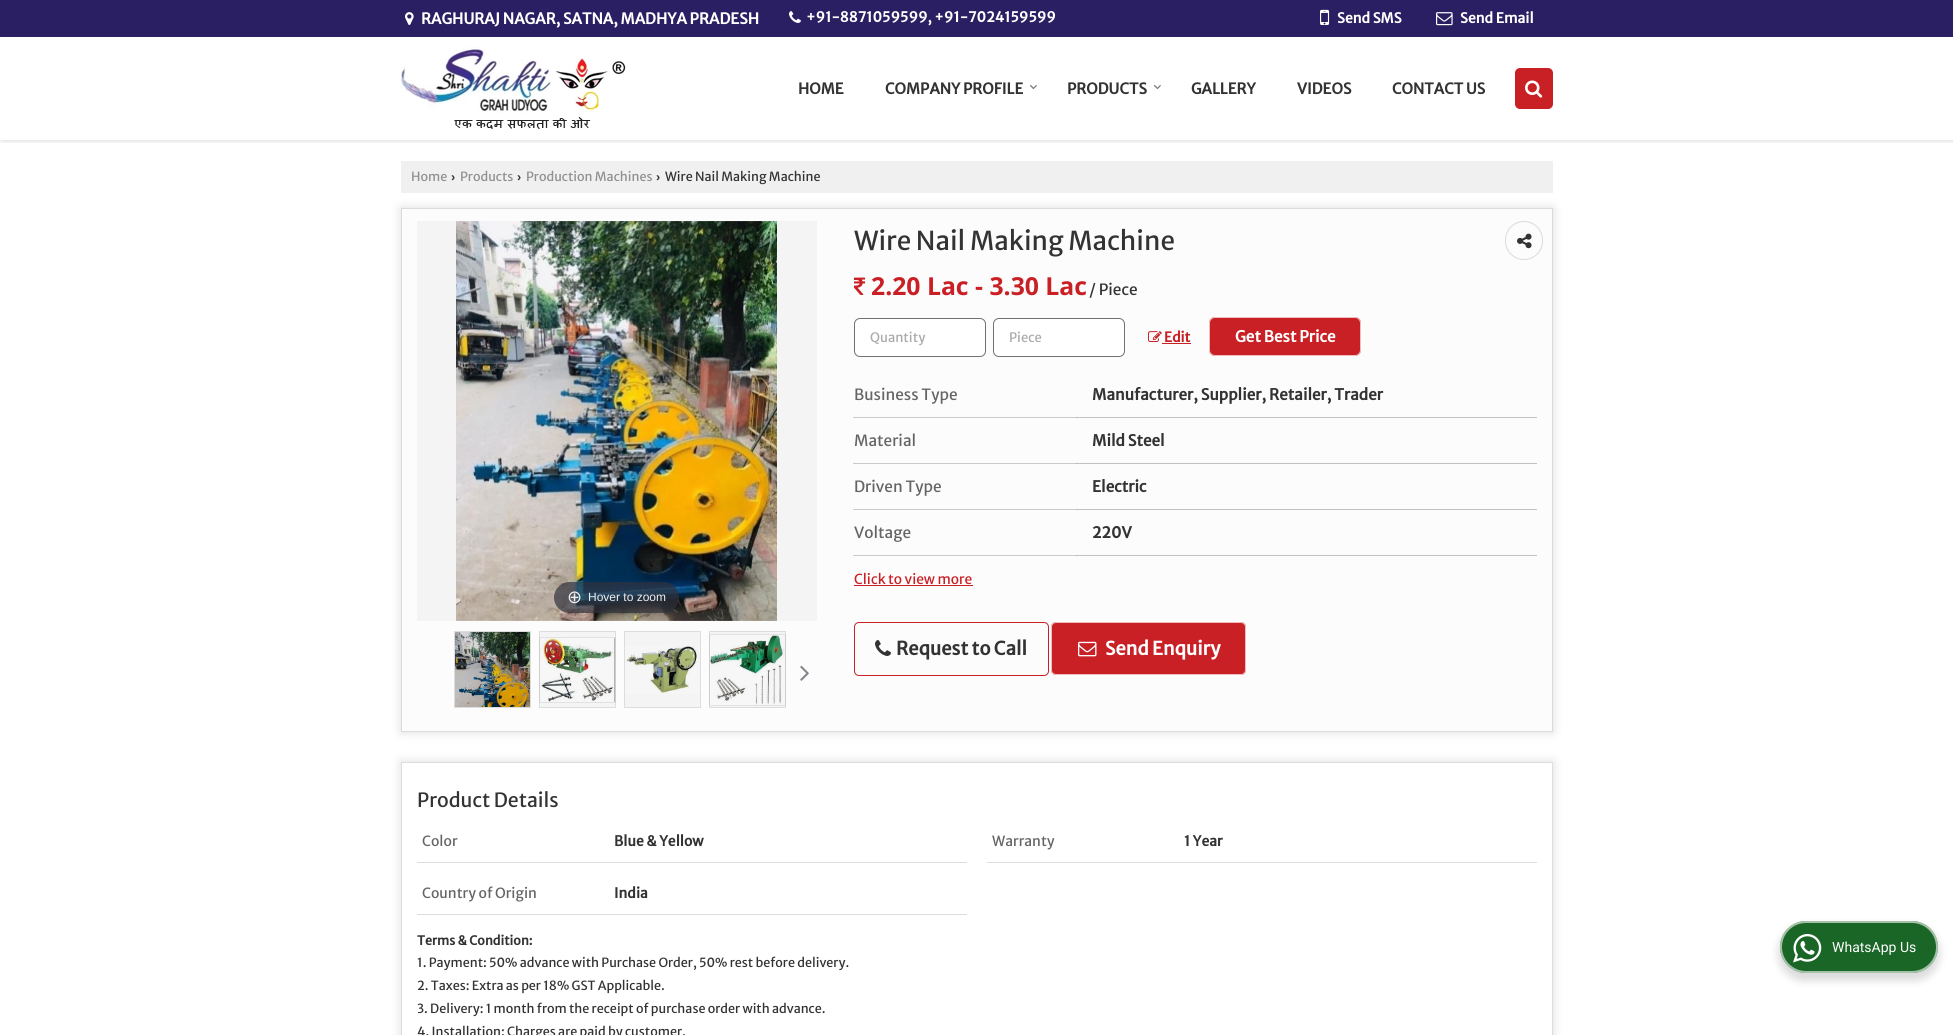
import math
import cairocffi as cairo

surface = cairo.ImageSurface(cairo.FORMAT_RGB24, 1953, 1035)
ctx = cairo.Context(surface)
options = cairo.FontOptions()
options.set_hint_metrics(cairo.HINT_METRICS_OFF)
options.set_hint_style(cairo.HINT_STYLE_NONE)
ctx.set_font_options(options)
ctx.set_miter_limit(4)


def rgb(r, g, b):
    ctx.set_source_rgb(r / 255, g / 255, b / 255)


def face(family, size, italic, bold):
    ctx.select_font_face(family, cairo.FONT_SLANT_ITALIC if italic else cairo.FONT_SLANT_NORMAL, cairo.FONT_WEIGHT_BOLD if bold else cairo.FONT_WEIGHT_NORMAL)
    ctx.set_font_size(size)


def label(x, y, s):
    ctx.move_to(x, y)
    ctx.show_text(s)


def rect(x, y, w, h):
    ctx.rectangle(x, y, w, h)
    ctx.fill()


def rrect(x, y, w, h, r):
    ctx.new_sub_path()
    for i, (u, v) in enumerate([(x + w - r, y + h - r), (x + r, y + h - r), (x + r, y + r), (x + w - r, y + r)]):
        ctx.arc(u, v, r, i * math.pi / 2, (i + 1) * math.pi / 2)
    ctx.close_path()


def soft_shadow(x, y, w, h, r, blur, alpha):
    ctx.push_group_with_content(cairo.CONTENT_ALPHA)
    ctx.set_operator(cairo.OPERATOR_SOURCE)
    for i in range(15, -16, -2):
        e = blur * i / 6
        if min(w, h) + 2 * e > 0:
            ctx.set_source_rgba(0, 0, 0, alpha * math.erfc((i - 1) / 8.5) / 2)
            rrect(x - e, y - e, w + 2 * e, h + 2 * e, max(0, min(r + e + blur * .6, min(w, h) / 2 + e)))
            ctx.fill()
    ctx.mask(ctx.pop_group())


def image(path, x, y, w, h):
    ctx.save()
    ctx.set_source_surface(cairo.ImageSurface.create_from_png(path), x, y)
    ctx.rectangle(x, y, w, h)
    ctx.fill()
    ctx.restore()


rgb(255, 255, 255)
ctx.paint()
rgb(43, 31, 99)
rect(0, 0, 1953, 37)
image('image0.png', 405, 12, 9, 13)
face('Merriweather Sans', 15.1, 0, 1)
rgb(255, 255, 255)
label(421, 24, 'RAGHURAJ NAGAR, SATNA, MADHYA PRADESH')
image('image1.png', 789, 11, 12, 12)
face('Merriweather Sans', 14, 0, 1)
label(806, 22, '+91-8871059599, +91-7024159599')
image('image2.png', 1320, 9, 10, 16)
label(1337, 23, 'Send SMS')
image('image3.png', 1436, 12, 17, 14)
label(1460, 23, 'Send Email')
ctx.save()
ctx.rectangle(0, 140, 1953, 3)
ctx.clip()
rgb(0, 0, 0)
soft_shadow(1, 39, 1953, 103, 0, 1.5, 0.1)
ctx.restore()
image('image4.png', 401, 47, 225, 82)
face('Merriweather Sans', 15, 0, 1)
rgb(51, 51, 51)
label(798, 94, 'HOME')
label(885, 94, 'COMPANY PROFILE')
image('image5.png', 1030, 85, 7, 5)
label(1067, 94, 'PRODUCTS')
image('image5.png', 1154, 85, 7, 5)
label(1191, 94, 'GALLERY')
label(1297, 94, 'VIDEOS')
label(1392, 94, 'CONTACT US')
rgb(201, 32, 37)
rrect(1515, 68, 38, 41, 5)
ctx.fill()
image('image6.png', 1525, 80, 18, 18)
rgb(240, 240, 240)
rect(401, 161, 1152, 32)
face('Merriweather Sans', 12.6, 0, 0)
rgb(144, 144, 144)
label(411, 181, 'Home')
face('Liberation Sans', 12.6, 0, 1)
rgb(51, 51, 51)
label(451, 181, '›')
face('Merriweather Sans', 12.6, 0, 0)
rgb(144, 144, 144)
label(460, 181, 'Products')
face('Liberation Sans', 12.6, 0, 1)
rgb(51, 51, 51)
label(517, 181, '›')
face('Merriweather Sans', 12.6, 0, 0)
rgb(144, 144, 144)
label(526, 181, 'Production Machines')
face('Liberation Sans', 12.6, 0, 1)
rgb(51, 51, 51)
label(656, 181, '›')
face('Merriweather Sans', 12.6, 0, 0)
label(665, 181, 'Wire Nail Making Machine')
rgb(204, 204, 204)
soft_shadow(401, 208, 1152, 524, 0, 5, 0.67)
rgb(252, 252, 252)
rect(402, 209, 1150, 522)
rgb(244, 244, 244)
rect(710, 632, 75, 75)
rect(625, 632, 75, 75)
rect(540, 632, 75, 75)
ctx.rectangle(401.5, 208.5, 1151, 523)
rgb(219, 219, 219)
ctx.set_line_width(1)
ctx.stroke()
rgb(244, 244, 244)
rect(417, 221, 400, 400)
image('image7.png', 456, 221, 321, 400)
ctx.set_source_rgba(0.192, 0.2, 0.239, 0.7)
rrect(554, 582, 125, 31, 15.5)
ctx.fill()
face('DejaVu Sans', 18, 0, 0)
rgb(238, 238, 238)
label(567, 603, '⊕')
face('Liberation Sans', 12, 0, 0)
label(588, 601, 'Hover to zoom')
ctx.rectangle(454.5, 631.5, 76, 76)
rgb(221, 221, 221)
ctx.stroke()
image('image8.png', 455, 632, 75, 75)
ctx.rectangle(539.5, 631.5, 76, 76)
ctx.stroke()
rgb(0, 0, 0)
soft_shadow(540, 638, 75, 64, 0, 0.5, 0.3)
image('image9.png', 540, 638, 74, 64)
ctx.rectangle(624.5, 631.5, 76, 76)
rgb(221, 221, 221)
ctx.stroke()
image('image10.png', 625, 646, 75, 48)
ctx.rectangle(709.5, 631.5, 76, 76)
ctx.stroke()
rgb(0, 0, 0)
soft_shadow(710, 635, 75, 70, 0, 0.5, 0.3)
image('image11.png', 710, 635, 75, 70)
image('image12.png', 800, 665, 9, 16)
face('Merriweather Sans', 26, 0, 0)
rgb(51, 51, 51)
label(854, 250, 'Wire Nail Making Machine')
rrect(1505.5, 221.5, 37, 38, 18.5)
rgb(219, 219, 219)
ctx.stroke()
image('image13.png', 1517, 233, 15, 16)
image('image14.png', 854, 277, 12, 18)
face('Open Sans', 24.75, 0, 1)
rgb(201, 32, 37)
label(871, 295, '2.20 Lac - 3.30 Lac')
face('Merriweather Sans', 15.4, 0, 0)
rgb(51, 51, 51)
label(1089, 295, '/ Piece')
rgb(255, 255, 255)
rrect(854.5, 318.5, 131, 38, 5.5)
ctx.fill_preserve()
rgb(113, 113, 113)
ctx.stroke()
face('Merriweather Sans', 13, 0, 0)
rgb(170, 170, 170)
label(870, 342, 'Quantity')
rgb(255, 255, 255)
rrect(993.5, 318.5, 131, 38, 5.5)
ctx.fill_preserve()
rgb(113, 113, 113)
ctx.stroke()
rgb(170, 170, 170)
label(1009, 342, 'Piece')
image('image15.png', 1148, 331, 14, 11)
face('Merriweather Sans', 13.75, 0, 1)
rgb(201, 32, 37)
label(1164, 342, 'Edit')
rect(1162, 343, 29, 1)
rrect(1209, 317, 152, 39, 6)
ctx.fill()
rrect(1209.5, 317.5, 151, 38, 5.5)
ctx.set_source_rgba(1, 1, 1, 0.7)
ctx.stroke()
face('Merriweather Sans', 15.4, 0, 1)
rgb(255, 255, 255)
label(1235, 342, 'Get Best Price')
face('Merriweather Sans', 15.4, 0, 0)
rgb(101, 101, 101)
label(854, 400, 'Business Type')
rgb(202, 202, 202)
rect(853, 417, 224, 1)
rgb(193, 193, 193)
rect(1076, 417, 461, 1)
rgb(172, 172, 172)
rect(1076, 417, 1, 1)
face('Merriweather Sans', 15.4, 0, 1)
rgb(51, 51, 51)
label(1092, 400, 'Manufacturer, Supplier, Retailer, Trader')
face('Merriweather Sans', 15.4, 0, 0)
rgb(101, 101, 101)
label(854, 446, 'Material')
rgb(202, 202, 202)
rect(853, 463, 224, 1)
rgb(193, 193, 193)
rect(1076, 463, 461, 1)
rgb(172, 172, 172)
rect(1076, 463, 1, 1)
face('Merriweather Sans', 15.4, 0, 1)
rgb(51, 51, 51)
label(1092, 446, 'Mild Steel')
face('Merriweather Sans', 15.4, 0, 0)
rgb(101, 101, 101)
label(854, 492, 'Driven Type')
rgb(202, 202, 202)
rect(853, 509, 224, 1)
rgb(193, 193, 193)
rect(1076, 509, 461, 1)
rgb(172, 172, 172)
rect(1076, 509, 1, 1)
face('Merriweather Sans', 15.4, 0, 1)
rgb(51, 51, 51)
label(1092, 492, 'Electric')
face('Merriweather Sans', 15.4, 0, 0)
rgb(101, 101, 101)
label(854, 538, 'Voltage')
rgb(202, 202, 202)
rect(853, 555, 224, 1)
rgb(193, 193, 193)
rect(1076, 555, 461, 1)
rgb(172, 172, 172)
rect(1076, 555, 1, 1)
face('Merriweather Sans', 15.4, 0, 1)
rgb(51, 51, 51)
label(1092, 538, '220V')
face('Merriweather Sans', 13.75, 0, 0)
rgb(201, 32, 37)
label(854, 584, 'Click to view more')
rect(854, 585, 119, 1)
rrect(854.5, 622.5, 194, 53, 4.5)
ctx.stroke()
image('image16.png', 875, 640, 16, 16)
face('Merriweather Sans', 18.5, 0, 1)
rgb(51, 51, 51)
label(896, 655, 'Request to Call')
rgb(201, 32, 37)
rrect(1051, 622, 195, 53, 5)
ctx.fill()
rrect(1051.5, 622.5, 194, 52, 4.5)
ctx.set_source_rgba(1, 1, 1, 0.7)
ctx.stroke()
image('image17.png', 1078, 641, 19, 16)
rgb(255, 255, 255)
label(1105, 655, 'Send Enquiry')
ctx.save()
ctx.set_fill_rule(cairo.FILL_RULE_EVEN_ODD)
ctx.new_path()
ctx.move_to(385, 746)
ctx.line_to(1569, 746)
ctx.line_to(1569, 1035)
ctx.line_to(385, 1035)
ctx.close_path()
ctx.move_to(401, 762)
ctx.line_to(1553, 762)
ctx.line_to(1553, 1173)
ctx.line_to(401, 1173)
ctx.close_path()
ctx.clip()
rgb(204, 204, 204)
soft_shadow(401, 762, 1152, 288, 0, 5, 0.67)
ctx.restore()
ctx.rectangle(401.5, 762.5, 1151, 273)
rgb(222, 222, 222)
ctx.stroke()
face('Merriweather Sans', 19.5, 0, 0)
rgb(51, 51, 51)
label(417, 807, 'Product Details')
rgb(222, 222, 222)
rect(417, 862, 550, 1)
face('Merriweather Sans', 14, 0, 0)
rgb(101, 101, 101)
label(422, 846, 'Color')
face('Merriweather Sans', 14, 0, 1)
rgb(51, 51, 51)
label(614, 846, 'Blue & Yellow')
rgb(222, 222, 222)
rect(987, 862, 550, 1)
face('Merriweather Sans', 14, 0, 0)
rgb(101, 101, 101)
label(992, 846, 'Warranty')
face('Merriweather Sans', 14, 0, 1)
rgb(51, 51, 51)
label(1184, 846, '1 Year')
rgb(222, 222, 222)
rect(417, 914, 550, 1)
face('Merriweather Sans', 14, 0, 0)
rgb(101, 101, 101)
label(422, 898, 'Country of Origin')
face('Merriweather Sans', 14, 0, 1)
rgb(51, 51, 51)
label(614, 898, 'India')
face('Merriweather Sans', 12.6, 0, 1)
label(417, 945, 'Terms & Condition:')
face('Merriweather Sans', 12.6, 0, 0)
label(417, 967, '1. Payment: 50% advance with Purchase Order, 50% rest before delivery.')
label(417, 990, '2. Taxes: Extra as per 18% GST Applicable.')
label(417, 1013, '3. Delivery: 1 month from the receipt of purchase order with advance.')
label(417, 1036, '4. Installation: Charges are paid by customer.')
rgb(0, 0, 0)
soft_shadow(1778, 925, 162, 56, 28, 4, 0.14)
rgb(25, 102, 38)
rrect(1780, 921, 158, 52, 26)
ctx.fill()
rrect(1781, 922, 156, 50, 25)
ctx.set_source_rgba(1, 1, 1, 0.6)
ctx.set_line_width(2)
ctx.stroke()
image('image18.png', 1793, 934, 29, 29)
face('Roboto', 14, 0, 0)
rgb(255, 255, 255)
label(1832, 952, 'WhatsApp Us')
surface.write_to_png('render.png')
